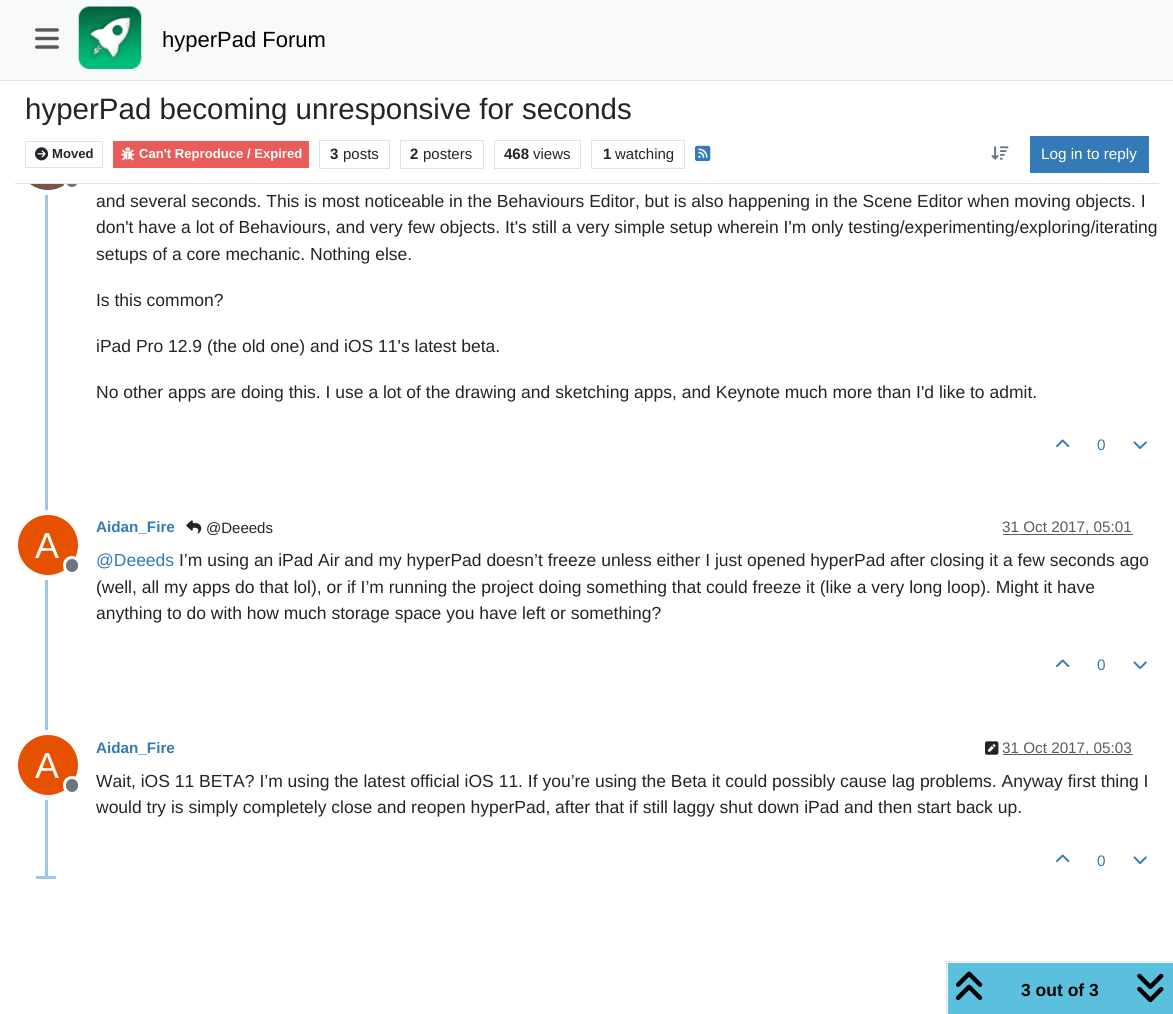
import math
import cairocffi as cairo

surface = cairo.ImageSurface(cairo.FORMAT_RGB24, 1173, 1014)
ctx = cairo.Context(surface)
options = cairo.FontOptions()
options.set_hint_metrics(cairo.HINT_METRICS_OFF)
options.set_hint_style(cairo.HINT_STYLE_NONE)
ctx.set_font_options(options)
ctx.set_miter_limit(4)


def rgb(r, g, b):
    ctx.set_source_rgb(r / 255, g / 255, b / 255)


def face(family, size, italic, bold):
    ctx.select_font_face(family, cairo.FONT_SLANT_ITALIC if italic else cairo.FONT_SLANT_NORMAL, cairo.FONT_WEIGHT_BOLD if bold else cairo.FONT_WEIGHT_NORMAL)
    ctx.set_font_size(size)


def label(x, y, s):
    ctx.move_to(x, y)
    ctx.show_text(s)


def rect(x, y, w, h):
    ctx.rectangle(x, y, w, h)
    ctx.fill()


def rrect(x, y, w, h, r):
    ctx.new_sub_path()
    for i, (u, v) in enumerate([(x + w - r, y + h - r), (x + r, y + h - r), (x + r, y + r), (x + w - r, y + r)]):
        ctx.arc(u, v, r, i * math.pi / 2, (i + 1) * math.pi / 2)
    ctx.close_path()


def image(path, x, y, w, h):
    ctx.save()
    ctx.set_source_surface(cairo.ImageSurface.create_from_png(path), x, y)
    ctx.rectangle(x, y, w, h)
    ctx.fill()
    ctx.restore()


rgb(255, 255, 255)
ctx.paint()
rgb(248, 249, 250)
rect(0, 0, 1173, 80)
rgb(222, 226, 230)
rect(0, 80, 1173, 1)
image('image0.png', 35, 28, 24, 21)
image('image1.png', 78, 6, 64, 63)
face('Liberation Sans', 22, 0, 0)
rgb(0, 0, 0)
label(162, 47, 'hyperPad Forum')
rgb(160, 196, 228)
rect(45, 189, 3, 690)
ctx.new_path()
ctx.arc(48, 160, 32.5, 0, 2 * math.pi)
rgb(255, 255, 255)
ctx.set_line_width(5)
ctx.stroke()
rgb(121, 85, 72)
ctx.arc(48, 160, 30, 0, 2 * math.pi)
ctx.fill()
rgb(108, 117, 125)
rrect(64.5, 172.5, 15, 16, 7.5)
ctx.fill_preserve()
rgb(255, 255, 255)
ctx.set_line_width(3)
ctx.stroke()
rect(18, 130, 63, 53)
rgb(222, 226, 230)
rect(15, 183, 1144, 1)
face('Liberation Sans', 29.5, 0, 0)
rgb(33, 37, 41)
label(25, 119, 'hyperPad becoming unresponsive for seconds')
ctx.rectangle(25.5, 141.5, 77, 26)
rgb(222, 226, 230)
ctx.set_line_width(1)
ctx.stroke()
image('image2.png', 35, 147, 14, 14)
face('Liberation Sans', 13.1, 0, 1)
rgb(33, 37, 41)
label(52, 158, 'Moved')
rgb(233, 92, 90)
rect(113, 141, 196, 27)
image('image3.png', 121, 147, 14, 14)
rgb(255, 255, 255)
label(139, 158, 'Can\'t Reproduce / Expired')
ctx.rectangle(319.5, 140.5, 70, 28)
rgb(222, 226, 230)
ctx.stroke()
face('Liberation Sans', 15, 0, 1)
rgb(33, 37, 41)
label(330, 159, '3')
face('Liberation Sans', 15, 0, 0)
label(343, 159, 'posts')
ctx.rectangle(400.5, 140.5, 83, 28)
rgb(222, 226, 230)
ctx.stroke()
face('Liberation Sans', 15, 0, 1)
rgb(33, 37, 41)
label(410, 159, '2')
face('Liberation Sans', 15, 0, 0)
label(423, 159, 'posters')
ctx.rectangle(494.5, 140.5, 86, 28)
rgb(222, 226, 230)
ctx.stroke()
face('Liberation Sans', 15, 0, 1)
rgb(33, 37, 41)
label(504, 159, '468')
face('Liberation Sans', 15, 0, 0)
label(533, 159, 'views')
ctx.rectangle(591.5, 140.5, 93, 28)
rgb(222, 226, 230)
ctx.stroke()
face('Liberation Sans', 15, 0, 1)
rgb(33, 37, 41)
label(603, 159, '1')
face('Liberation Sans', 15, 0, 0)
label(615, 159, 'watching')
image('image4.png', 695, 145, 16, 17)
image('image5.png', 991, 146, 18, 14)
rgb(51, 122, 183)
rect(1030, 136, 119, 37)
face('Liberation Sans', 15.25, 0, 0)
rgb(255, 255, 255)
label(1041, 159, 'Log in to reply')
face('Liberation Sans', 17.5, 0, 0)
rgb(33, 37, 41)
label(96, 207, 'and several seconds. This is most noticeable in the Behaviours Editor, but is also happening in the Scene Editor when moving objects. I')
label(96, 233, 'don\'t have a lot of Behaviours, and very few objects. It\'s still a very simple setup wherein I\'m only testing/experimenting/exploring/iterating')
label(96, 260, 'setups of a core mechanic. Nothing else.')
label(96, 306, 'Is this common?')
label(96, 352, 'iPad Pro 12.9 (the old one) and iOS 11\'s latest beta.')
label(96, 398, 'No other apps are doing this. I use a lot of the drawing and sketching apps, and Keynote much more than I\'d like to admit.')
image('image6.png', 1056, 439, 14, 9)
face('Liberation Sans', 15.25, 0, 0)
rgb(51, 122, 183)
label(1097, 450, '0')
image('image7.png', 1133, 441, 14, 8)
face('Liberation Sans', 15.25, 0, 1)
label(96, 532, 'Aidan_Fire')
image('image8.png', 186, 520, 16, 14)
face('Liberation Sans', 15, 0, 0)
rgb(33, 37, 41)
label(206, 533, '@Deeeds')
face('Liberation Sans', 15.25, 0, 0)
rgb(89, 92, 95)
label(1002, 532, '31 Oct 2017, 05:01')
rect(1003, 534, 130, 1)
ctx.new_path()
ctx.arc(48, 545, 32.5, 0, 2 * math.pi)
rgb(255, 255, 255)
ctx.set_line_width(5)
ctx.stroke()
rgb(230, 81, 0)
ctx.arc(48, 545, 30, 0, 2 * math.pi)
ctx.fill()
face('Liberation Sans', 36, 0, 0)
rgb(255, 255, 255)
label(35, 558, 'A')
rgb(108, 117, 125)
rrect(64.5, 557.5, 15, 16, 7.5)
ctx.fill_preserve()
rgb(255, 255, 255)
ctx.set_line_width(3)
ctx.stroke()
face('Liberation Sans', 17.5, 0, 0)
rgb(51, 122, 183)
label(96, 566, '@Deeeds')
rgb(33, 37, 41)
label(179, 566, 'I’m using an iPad Air and my hyperPad doesn’t freeze unless either I just opened hyperPad after closing it a few seconds ago')
label(96, 593, '(well, all my apps do that lol), or if I’m running the project doing something that could freeze it (like a very long loop). Might it have')
label(96, 619, 'anything to do with how much storage space you have left or something?')
image('image6.png', 1056, 659, 14, 9)
face('Liberation Sans', 15.25, 0, 0)
rgb(51, 122, 183)
label(1097, 670, '0')
image('image7.png', 1133, 661, 14, 8)
face('Liberation Sans', 15.25, 0, 1)
label(96, 753, 'Aidan_Fire')
image('image9.png', 985, 741, 14, 14)
rgb(89, 92, 95)
rect(1003, 754, 130, 1)
face('Liberation Sans', 15.25, 0, 0)
label(1002, 753, '31 Oct 2017, 05:03')
ctx.new_path()
ctx.arc(48, 765, 32.5, 0, 2 * math.pi)
rgb(255, 255, 255)
ctx.set_line_width(5)
ctx.stroke()
rgb(230, 81, 0)
ctx.arc(48, 765, 30, 0, 2 * math.pi)
ctx.fill()
face('Liberation Sans', 36, 0, 0)
rgb(255, 255, 255)
label(35, 778, 'A')
rgb(108, 117, 125)
rrect(64.5, 777.5, 15, 16, 7.5)
ctx.fill_preserve()
rgb(255, 255, 255)
ctx.set_line_width(3)
ctx.stroke()
face('Liberation Sans', 17.5, 0, 0)
rgb(33, 37, 41)
label(96, 787, 'Wait, iOS 11 BETA? I’m using the latest official iOS 11. If you’re using the Beta it could possibly cause lag problems. Anyway first thing I')
label(96, 813, 'would try is simply completely close and reopen hyperPad, after that if still laggy shut down iPad and then start back up.')
image('image6.png', 1056, 854, 14, 9)
face('Liberation Sans', 15.25, 0, 0)
rgb(51, 122, 183)
label(1097, 866, '0')
image('image7.png', 1133, 856, 14, 8)
rgb(160, 196, 228)
rect(36, 876, 20, 3)
rgb(248, 249, 250)
ctx.rectangle(946.5, 961.5, 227, 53)
ctx.fill_preserve()
rgb(222, 226, 230)
ctx.set_line_width(1)
ctx.stroke()
rgb(91, 192, 222)
rect(948, 963, 225, 51)
image('image10.png', 956, 971, 27, 29)
face('Liberation Sans', 17.5, 0, 1)
rgb(0, 0, 0)
label(1021, 996, '3 out of 3')
image('image11.png', 1137, 973, 27, 30)
surface.write_to_png('render.png')
